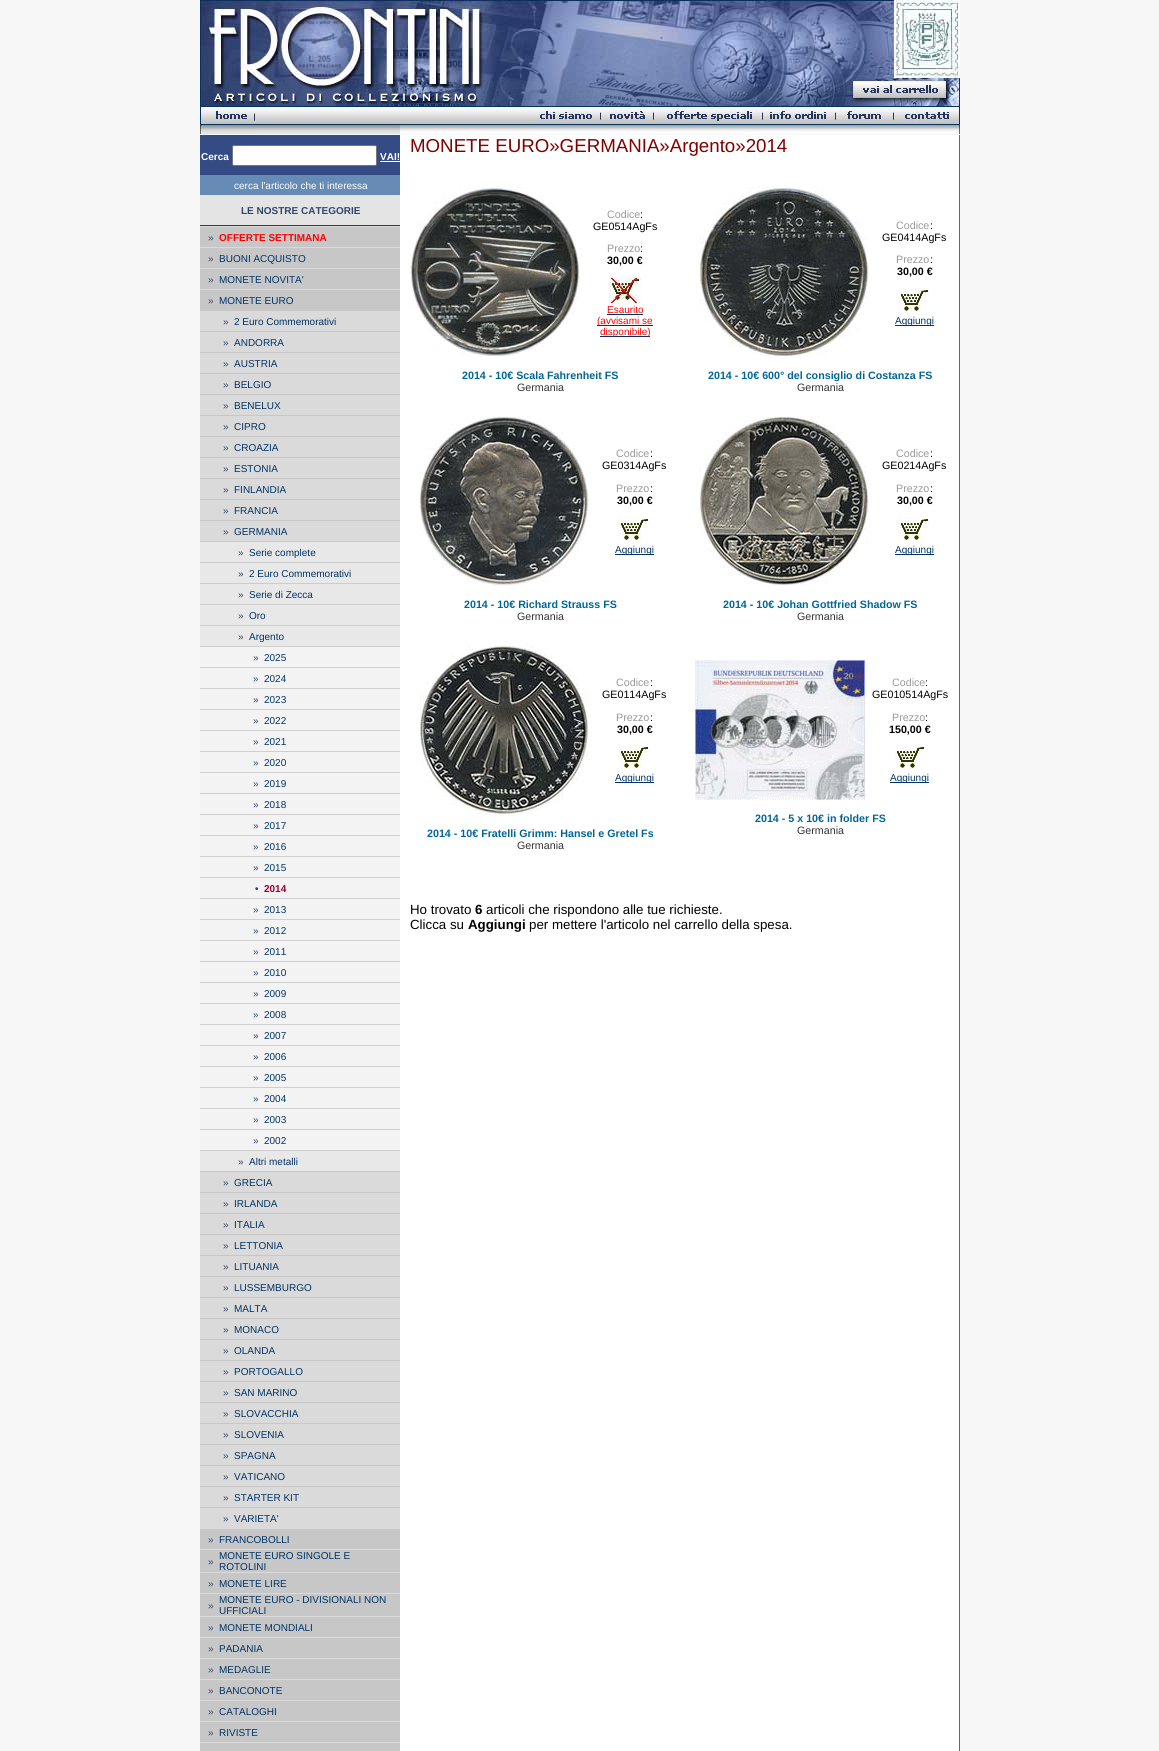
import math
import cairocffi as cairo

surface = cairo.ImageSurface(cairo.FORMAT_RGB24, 1159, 1751)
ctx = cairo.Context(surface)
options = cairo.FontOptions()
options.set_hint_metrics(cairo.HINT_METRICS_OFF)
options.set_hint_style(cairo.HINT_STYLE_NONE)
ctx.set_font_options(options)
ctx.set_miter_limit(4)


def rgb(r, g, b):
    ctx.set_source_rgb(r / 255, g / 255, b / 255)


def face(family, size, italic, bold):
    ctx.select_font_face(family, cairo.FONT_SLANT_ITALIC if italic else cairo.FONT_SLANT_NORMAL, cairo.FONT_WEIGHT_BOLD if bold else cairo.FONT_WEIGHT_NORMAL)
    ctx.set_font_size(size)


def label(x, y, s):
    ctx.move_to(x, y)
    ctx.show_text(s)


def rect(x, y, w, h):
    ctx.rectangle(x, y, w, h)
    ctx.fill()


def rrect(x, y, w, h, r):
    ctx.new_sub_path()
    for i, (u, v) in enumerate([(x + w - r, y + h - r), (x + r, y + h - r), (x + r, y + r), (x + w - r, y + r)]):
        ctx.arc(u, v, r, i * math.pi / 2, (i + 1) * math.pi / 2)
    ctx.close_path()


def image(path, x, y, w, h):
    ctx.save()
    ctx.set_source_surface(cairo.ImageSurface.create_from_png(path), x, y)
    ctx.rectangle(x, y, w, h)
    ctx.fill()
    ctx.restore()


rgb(247, 247, 247)
ctx.paint()
image('image0.png', 200, 0, 760, 81)
image('image1.png', 200, 81, 652, 25)
image('image2.png', 852, 81, 94, 17)
image('image3.png', 946, 81, 14, 25)
image('image4.png', 852, 98, 94, 8)
image('image5.png', 200, 106, 54, 18)
image('image6.png', 254, 106, 276, 28)
image('image7.png', 530, 106, 70, 18)
image('image8.png', 600, 106, 53, 18)
image('image9.png', 653, 106, 110, 18)
image('image10.png', 763, 106, 73, 18)
image('image11.png', 836, 106, 57, 18)
image('image12.png', 893, 106, 67, 18)
image('image13.png', 200, 124, 54, 10)
image('image14.png', 530, 124, 430, 10)
rgb(255, 255, 255)
rect(400, 135, 559, 1616)
rgb(102, 102, 102)
rect(959, 135, 1, 1616)
rgb(228, 228, 228)
rect(200, 195, 200, 30)
rgb(53, 75, 134)
rect(200, 135, 200, 40)
face('Liberation Sans', 10, 0, 1)
rgb(255, 255, 255)
label(201, 160, 'Cerca')
rrect(232.5, 145.5, 144, 20, 1.5)
ctx.fill_preserve()
rgb(118, 118, 118)
ctx.set_line_width(1)
ctx.stroke()
rgb(255, 255, 255)
label(380, 160, 'VAI!')
rect(380, 161, 20, 1)
rgb(102, 139, 181)
rect(200, 175, 200, 20)
face('Liberation Sans', 10, 0, 0)
rgb(255, 255, 255)
label(234, 189, 'cerca l\'articolo che ti interessa')
face('Liberation Sans', 10, 0, 1)
rgb(48, 71, 107)
label(241, 214, 'LE NOSTRE CATEGORIE')
rgb(41, 59, 104)
rect(200, 225, 200, 1)
rgb(218, 218, 218)
rect(200, 226, 200, 1)
rgb(199, 199, 199)
rect(200, 227, 200, 20)
face('Liberation Sans', 10, 0, 0)
rgb(48, 71, 107)
label(208, 241, '»')
face('Liberation Sans', 10, 0, 1)
rgb(255, 0, 0)
label(219, 241, 'OFFERTE SETTIMANA')
rgb(218, 218, 218)
rect(200, 247, 200, 1)
rgb(199, 199, 199)
rect(200, 248, 200, 20)
face('Liberation Sans', 10, 0, 0)
rgb(48, 71, 107)
label(208, 262, '»')
rgb(0, 51, 102)
label(219, 262, 'BUONI ACQUISTO')
rgb(218, 218, 218)
rect(200, 268, 200, 1)
rgb(199, 199, 199)
rect(200, 269, 200, 20)
rgb(48, 71, 107)
label(208, 283, '»')
rgb(0, 51, 102)
label(219, 283, 'MONETE NOVITA\'')
rgb(218, 218, 218)
rect(200, 289, 200, 1)
rgb(199, 199, 199)
rect(200, 290, 200, 21)
rgb(48, 71, 107)
label(208, 304, '»')
rgb(0, 51, 102)
label(219, 304, 'MONETE EURO')
rgb(218, 218, 218)
rect(200, 311, 200, 20)
rgb(48, 71, 107)
label(223, 325, '»')
rgb(0, 51, 102)
label(234, 325, '2 Euro Commemorativi')
rgb(199, 199, 199)
rect(200, 331, 200, 1)
rgb(218, 218, 218)
rect(200, 332, 200, 20)
rgb(48, 71, 107)
label(223, 346, '»')
rgb(0, 51, 102)
label(234, 346, 'ANDORRA')
rgb(199, 199, 199)
rect(200, 352, 200, 1)
rgb(218, 218, 218)
rect(200, 353, 200, 20)
rgb(48, 71, 107)
label(223, 367, '»')
rgb(0, 51, 102)
label(234, 367, 'AUSTRIA')
rgb(199, 199, 199)
rect(200, 373, 200, 1)
rgb(218, 218, 218)
rect(200, 374, 200, 20)
rgb(48, 71, 107)
label(223, 388, '»')
rgb(0, 51, 102)
label(234, 388, 'BELGIO')
rgb(199, 199, 199)
rect(200, 394, 200, 1)
rgb(218, 218, 218)
rect(200, 395, 200, 20)
rgb(48, 71, 107)
label(223, 409, '»')
rgb(0, 51, 102)
label(234, 409, 'BENELUX')
rgb(199, 199, 199)
rect(200, 415, 200, 1)
rgb(218, 218, 218)
rect(200, 416, 200, 20)
rgb(48, 71, 107)
label(223, 430, '»')
rgb(0, 51, 102)
label(234, 430, 'CIPRO')
rgb(199, 199, 199)
rect(200, 436, 200, 1)
rgb(218, 218, 218)
rect(200, 437, 200, 20)
rgb(48, 71, 107)
label(223, 451, '»')
rgb(0, 51, 102)
label(234, 451, 'CROAZIA')
rgb(199, 199, 199)
rect(200, 457, 200, 1)
rgb(218, 218, 218)
rect(200, 458, 200, 20)
rgb(48, 71, 107)
label(223, 472, '»')
rgb(0, 51, 102)
label(234, 472, 'ESTONIA')
rgb(199, 199, 199)
rect(200, 478, 200, 1)
rgb(218, 218, 218)
rect(200, 479, 200, 20)
rgb(48, 71, 107)
label(223, 493, '»')
rgb(0, 51, 102)
label(234, 493, 'FINLANDIA')
rgb(199, 199, 199)
rect(200, 499, 200, 1)
rgb(218, 218, 218)
rect(200, 500, 200, 20)
rgb(48, 71, 107)
label(223, 514, '»')
rgb(0, 51, 102)
label(234, 514, 'FRANCIA')
rgb(199, 199, 199)
rect(200, 520, 200, 1)
rgb(218, 218, 218)
rect(200, 521, 200, 20)
rgb(48, 71, 107)
label(223, 535, '»')
rgb(0, 51, 102)
label(234, 535, 'GERMANIA')
rgb(204, 204, 204)
rect(200, 541, 200, 85)
rgb(232, 232, 232)
rect(200, 542, 200, 20)
rgb(48, 71, 107)
label(238, 556, '»')
rgb(0, 51, 102)
label(249, 556, 'Serie complete')
rgb(232, 232, 232)
rect(200, 563, 200, 20)
rgb(48, 71, 107)
label(238, 577, '»')
rgb(0, 51, 102)
label(249, 577, '2 Euro Commemorativi')
rgb(232, 232, 232)
rect(200, 584, 200, 20)
rgb(48, 71, 107)
label(238, 598, '»')
rgb(0, 51, 102)
label(249, 598, 'Serie di Zecca')
rgb(232, 232, 232)
rect(200, 605, 200, 20)
rgb(48, 71, 107)
label(238, 619, '»')
rgb(0, 51, 102)
label(249, 619, 'Oro')
rgb(232, 232, 232)
rect(200, 626, 200, 20)
rgb(48, 71, 107)
label(238, 640, '»')
rgb(0, 51, 102)
label(249, 640, 'Argento')
rgb(207, 207, 207)
rect(200, 646, 200, 1)
rgb(243, 243, 243)
rect(200, 647, 200, 20)
rgb(48, 71, 107)
label(253, 661, '»')
rgb(0, 51, 102)
label(264, 661, '2025')
rgb(207, 207, 207)
rect(200, 667, 200, 1)
rgb(243, 243, 243)
rect(200, 668, 200, 20)
rgb(48, 71, 107)
label(253, 682, '»')
rgb(0, 51, 102)
label(264, 682, '2024')
rgb(207, 207, 207)
rect(200, 688, 200, 1)
rgb(243, 243, 243)
rect(200, 689, 200, 20)
rgb(48, 71, 107)
label(253, 703, '»')
rgb(0, 51, 102)
label(264, 703, '2023')
rgb(207, 207, 207)
rect(200, 709, 200, 1)
rgb(243, 243, 243)
rect(200, 710, 200, 20)
rgb(48, 71, 107)
label(253, 724, '»')
rgb(0, 51, 102)
label(264, 724, '2022')
rgb(207, 207, 207)
rect(200, 730, 200, 1)
rgb(243, 243, 243)
rect(200, 731, 200, 20)
rgb(48, 71, 107)
label(253, 745, '»')
rgb(0, 51, 102)
label(264, 745, '2021')
rgb(207, 207, 207)
rect(200, 751, 200, 1)
rgb(243, 243, 243)
rect(200, 752, 200, 20)
rgb(48, 71, 107)
label(253, 766, '»')
rgb(0, 51, 102)
label(264, 766, '2020')
rgb(207, 207, 207)
rect(200, 772, 200, 1)
rgb(243, 243, 243)
rect(200, 773, 200, 20)
rgb(48, 71, 107)
label(253, 787, '»')
rgb(0, 51, 102)
label(264, 787, '2019')
rgb(207, 207, 207)
rect(200, 793, 200, 1)
rgb(243, 243, 243)
rect(200, 794, 200, 20)
rgb(48, 71, 107)
label(253, 808, '»')
rgb(0, 51, 102)
label(264, 808, '2018')
rgb(207, 207, 207)
rect(200, 814, 200, 1)
rgb(243, 243, 243)
rect(200, 815, 200, 20)
rgb(48, 71, 107)
label(253, 829, '»')
rgb(0, 51, 102)
label(264, 829, '2017')
rgb(207, 207, 207)
rect(200, 835, 200, 1)
rgb(243, 243, 243)
rect(200, 836, 200, 20)
rgb(48, 71, 107)
label(253, 850, '»')
rgb(0, 51, 102)
label(264, 850, '2016')
rgb(207, 207, 207)
rect(200, 856, 200, 1)
rgb(243, 243, 243)
rect(200, 857, 200, 20)
rgb(48, 71, 107)
label(253, 871, '»')
rgb(0, 51, 102)
label(264, 871, '2015')
rgb(207, 207, 207)
rect(200, 877, 200, 1)
rgb(243, 243, 243)
rect(200, 878, 200, 20)
face('Liberation Sans', 10, 0, 1)
rgb(48, 71, 107)
label(255, 892, '•')
rgb(153, 0, 51)
label(264, 892, '2014')
rgb(207, 207, 207)
rect(200, 898, 200, 1)
rgb(243, 243, 243)
rect(200, 899, 200, 20)
face('Liberation Sans', 10, 0, 0)
rgb(48, 71, 107)
label(253, 913, '»')
rgb(0, 51, 102)
label(264, 913, '2013')
rgb(207, 207, 207)
rect(200, 919, 200, 1)
rgb(243, 243, 243)
rect(200, 920, 200, 20)
rgb(48, 71, 107)
label(253, 934, '»')
rgb(0, 51, 102)
label(264, 934, '2012')
rgb(207, 207, 207)
rect(200, 940, 200, 1)
rgb(243, 243, 243)
rect(200, 941, 200, 20)
rgb(48, 71, 107)
label(253, 955, '»')
rgb(0, 51, 102)
label(264, 955, '2011')
rgb(207, 207, 207)
rect(200, 961, 200, 1)
rgb(243, 243, 243)
rect(200, 962, 200, 20)
rgb(48, 71, 107)
label(253, 976, '»')
rgb(0, 51, 102)
label(264, 976, '2010')
rgb(207, 207, 207)
rect(200, 982, 200, 1)
rgb(243, 243, 243)
rect(200, 983, 200, 20)
rgb(48, 71, 107)
label(253, 997, '»')
rgb(0, 51, 102)
label(264, 997, '2009')
rgb(207, 207, 207)
rect(200, 1003, 200, 1)
rgb(243, 243, 243)
rect(200, 1004, 200, 20)
rgb(48, 71, 107)
label(253, 1018, '»')
rgb(0, 51, 102)
label(264, 1018, '2008')
rgb(207, 207, 207)
rect(200, 1024, 200, 1)
rgb(243, 243, 243)
rect(200, 1025, 200, 20)
rgb(48, 71, 107)
label(253, 1039, '»')
rgb(0, 51, 102)
label(264, 1039, '2007')
rgb(207, 207, 207)
rect(200, 1045, 200, 1)
rgb(243, 243, 243)
rect(200, 1046, 200, 20)
rgb(48, 71, 107)
label(253, 1060, '»')
rgb(0, 51, 102)
label(264, 1060, '2006')
rgb(207, 207, 207)
rect(200, 1066, 200, 1)
rgb(243, 243, 243)
rect(200, 1067, 200, 20)
rgb(48, 71, 107)
label(253, 1081, '»')
rgb(0, 51, 102)
label(264, 1081, '2005')
rgb(207, 207, 207)
rect(200, 1087, 200, 1)
rgb(243, 243, 243)
rect(200, 1088, 200, 20)
rgb(48, 71, 107)
label(253, 1102, '»')
rgb(0, 51, 102)
label(264, 1102, '2004')
rgb(207, 207, 207)
rect(200, 1108, 200, 1)
rgb(243, 243, 243)
rect(200, 1109, 200, 20)
rgb(48, 71, 107)
label(253, 1123, '»')
rgb(0, 51, 102)
label(264, 1123, '2003')
rgb(207, 207, 207)
rect(200, 1129, 200, 1)
rgb(243, 243, 243)
rect(200, 1130, 200, 20)
rgb(48, 71, 107)
label(253, 1144, '»')
rgb(0, 51, 102)
label(264, 1144, '2002')
rgb(204, 204, 204)
rect(200, 1150, 200, 1)
rgb(232, 232, 232)
rect(200, 1151, 200, 20)
rgb(48, 71, 107)
label(238, 1165, '»')
rgb(0, 51, 102)
label(249, 1165, 'Altri metalli')
rgb(199, 199, 199)
rect(200, 1171, 200, 1)
rgb(218, 218, 218)
rect(200, 1172, 200, 20)
rgb(48, 71, 107)
label(223, 1186, '»')
rgb(0, 51, 102)
label(234, 1186, 'GRECIA')
rgb(199, 199, 199)
rect(200, 1192, 200, 1)
rgb(218, 218, 218)
rect(200, 1193, 200, 20)
rgb(48, 71, 107)
label(223, 1207, '»')
rgb(0, 51, 102)
label(234, 1207, 'IRLANDA')
rgb(199, 199, 199)
rect(200, 1213, 200, 1)
rgb(218, 218, 218)
rect(200, 1214, 200, 20)
rgb(48, 71, 107)
label(223, 1228, '»')
rgb(0, 51, 102)
label(234, 1228, 'ITALIA')
rgb(199, 199, 199)
rect(200, 1234, 200, 1)
rgb(218, 218, 218)
rect(200, 1235, 200, 20)
rgb(48, 71, 107)
label(223, 1249, '»')
rgb(0, 51, 102)
label(234, 1249, 'LETTONIA')
rgb(199, 199, 199)
rect(200, 1255, 200, 1)
rgb(218, 218, 218)
rect(200, 1256, 200, 20)
rgb(48, 71, 107)
label(223, 1270, '»')
rgb(0, 51, 102)
label(234, 1270, 'LITUANIA')
rgb(199, 199, 199)
rect(200, 1276, 200, 1)
rgb(218, 218, 218)
rect(200, 1277, 200, 20)
rgb(48, 71, 107)
label(223, 1291, '»')
rgb(0, 51, 102)
label(234, 1291, 'LUSSEMBURGO')
rgb(199, 199, 199)
rect(200, 1297, 200, 1)
rgb(218, 218, 218)
rect(200, 1298, 200, 20)
rgb(48, 71, 107)
label(223, 1312, '»')
rgb(0, 51, 102)
label(234, 1312, 'MALTA')
rgb(199, 199, 199)
rect(200, 1318, 200, 1)
rgb(218, 218, 218)
rect(200, 1319, 200, 20)
rgb(48, 71, 107)
label(223, 1333, '»')
rgb(0, 51, 102)
label(234, 1333, 'MONACO')
rgb(199, 199, 199)
rect(200, 1339, 200, 1)
rgb(218, 218, 218)
rect(200, 1340, 200, 20)
rgb(48, 71, 107)
label(223, 1354, '»')
rgb(0, 51, 102)
label(234, 1354, 'OLANDA')
rgb(199, 199, 199)
rect(200, 1360, 200, 1)
rgb(218, 218, 218)
rect(200, 1361, 200, 20)
rgb(48, 71, 107)
label(223, 1375, '»')
rgb(0, 51, 102)
label(234, 1375, 'PORTOGALLO')
rgb(199, 199, 199)
rect(200, 1381, 200, 1)
rgb(218, 218, 218)
rect(200, 1382, 200, 20)
rgb(48, 71, 107)
label(223, 1396, '»')
rgb(0, 51, 102)
label(234, 1396, 'SAN MARINO')
rgb(199, 199, 199)
rect(200, 1402, 200, 1)
rgb(218, 218, 218)
rect(200, 1403, 200, 20)
rgb(48, 71, 107)
label(223, 1417, '»')
rgb(0, 51, 102)
label(234, 1417, 'SLOVACCHIA')
rgb(199, 199, 199)
rect(200, 1423, 200, 1)
rgb(218, 218, 218)
rect(200, 1424, 200, 20)
rgb(48, 71, 107)
label(223, 1438, '»')
rgb(0, 51, 102)
label(234, 1438, 'SLOVENIA')
rgb(199, 199, 199)
rect(200, 1444, 200, 1)
rgb(218, 218, 218)
rect(200, 1445, 200, 20)
rgb(48, 71, 107)
label(223, 1459, '»')
rgb(0, 51, 102)
label(234, 1459, 'SPAGNA')
rgb(199, 199, 199)
rect(200, 1465, 200, 1)
rgb(218, 218, 218)
rect(200, 1466, 200, 20)
rgb(48, 71, 107)
label(223, 1480, '»')
rgb(0, 51, 102)
label(234, 1480, 'VATICANO')
rgb(199, 199, 199)
rect(200, 1486, 200, 1)
rgb(218, 218, 218)
rect(200, 1487, 200, 20)
rgb(48, 71, 107)
label(223, 1501, '»')
rgb(0, 51, 102)
label(234, 1501, 'STARTER KIT')
rgb(199, 199, 199)
rect(200, 1507, 200, 1)
rgb(218, 218, 218)
rect(200, 1508, 200, 21)
rgb(48, 71, 107)
label(223, 1522, '»')
rgb(0, 51, 102)
label(234, 1522, 'VARIETA\'')
rgb(199, 199, 199)
rect(200, 1529, 200, 20)
rgb(48, 71, 107)
label(208, 1543, '»')
rgb(0, 51, 102)
label(219, 1543, 'FRANCOBOLLI')
rgb(218, 218, 218)
rect(200, 1549, 200, 1)
rgb(199, 199, 199)
rect(200, 1550, 200, 22)
rgb(48, 71, 107)
label(208, 1565, '»')
rgb(0, 51, 102)
label(219, 1559, 'MONETE EURO SINGOLE E')
label(219, 1570, 'ROTOLINI')
rgb(218, 218, 218)
rect(200, 1572, 200, 1)
rgb(199, 199, 199)
rect(200, 1573, 200, 20)
rgb(48, 71, 107)
label(208, 1587, '»')
rgb(0, 51, 102)
label(219, 1587, 'MONETE LIRE')
rgb(218, 218, 218)
rect(200, 1593, 200, 1)
rgb(199, 199, 199)
rect(200, 1594, 200, 22)
rgb(48, 71, 107)
label(208, 1609, '»')
rgb(0, 51, 102)
label(219, 1603, 'MONETE EURO - DIVISIONALI NON')
label(219, 1614, 'UFFICIALI')
rgb(218, 218, 218)
rect(200, 1616, 200, 1)
rgb(199, 199, 199)
rect(200, 1617, 200, 20)
rgb(48, 71, 107)
label(208, 1631, '»')
rgb(0, 51, 102)
label(219, 1631, 'MONETE MONDIALI')
rgb(218, 218, 218)
rect(200, 1637, 200, 1)
rgb(199, 199, 199)
rect(200, 1638, 200, 20)
rgb(48, 71, 107)
label(208, 1652, '»')
rgb(0, 51, 102)
label(219, 1652, 'PADANIA')
rgb(218, 218, 218)
rect(200, 1658, 200, 1)
rgb(199, 199, 199)
rect(200, 1659, 200, 20)
rgb(48, 71, 107)
label(208, 1673, '»')
rgb(0, 51, 102)
label(219, 1673, 'MEDAGLIE')
rgb(218, 218, 218)
rect(200, 1679, 200, 1)
rgb(199, 199, 199)
rect(200, 1680, 200, 20)
rgb(48, 71, 107)
label(208, 1694, '»')
rgb(0, 51, 102)
label(219, 1694, 'BANCONOTE')
rgb(218, 218, 218)
rect(200, 1700, 200, 1)
rgb(199, 199, 199)
rect(200, 1701, 200, 20)
rgb(48, 71, 107)
label(208, 1715, '»')
rgb(0, 51, 102)
label(219, 1715, 'CATALOGHI')
rgb(218, 218, 218)
rect(200, 1721, 200, 1)
rgb(199, 199, 199)
rect(200, 1722, 200, 20)
rgb(48, 71, 107)
label(208, 1736, '»')
rgb(0, 51, 102)
label(219, 1736, 'RIVISTE')
rgb(218, 218, 218)
rect(200, 1742, 200, 1)
rgb(199, 199, 199)
rect(200, 1743, 200, 8)
face('Liberation Sans', 18.7, 0, 0)
rgb(128, 0, 0)
label(410, 152, 'MONETE EURO»GERMANIA»Argento»2014')
image('image15.png', 410, 187, 170, 170)
face('Liberation Sans', 10.7, 0, 0)
rgb(153, 153, 153)
label(607, 218, 'Codice')
rgb(0, 0, 0)
label(640, 218, ':')
label(593, 230, 'GE0514AgFs')
rgb(153, 153, 153)
label(607, 252, 'Prezzo')
rgb(0, 0, 0)
label(640, 252, ':')
face('Liberation Sans', 10.7, 0, 1)
label(607, 264, '30,00 €')
image('image16.png', 609, 277, 32, 27)
face('Liberation Sans', 10, 0, 0)
rgb(255, 0, 0)
label(607, 313, 'Esaurito')
rgb(0, 51, 102)
rect(607, 314, 36, 1)
rect(597, 325, 56, 1)
rgb(255, 0, 0)
label(597, 324, '(avvisami se')
rgb(0, 51, 102)
rect(600, 336, 50, 1)
rgb(255, 0, 0)
label(600, 335, 'disponibile)')
face('Liberation Sans', 10.7, 0, 1)
rgb(0, 102, 153)
label(462, 379, '2014 - 10€ Scala Fahrenheit FS')
face('Liberation Sans', 10.7, 0, 0)
rgb(51, 51, 51)
label(517, 391, 'Germania')
image('image17.png', 699, 187, 170, 170)
rgb(153, 153, 153)
label(896, 229, 'Codice')
rgb(0, 0, 0)
label(930, 229, ':')
label(882, 241, 'GE0414AgFs')
rgb(153, 153, 153)
label(896, 263, 'Prezzo')
rgb(0, 0, 0)
label(930, 263, ':')
face('Liberation Sans', 10.7, 0, 1)
label(897, 275, '30,00 €')
image('image18.png', 898, 288, 32, 24)
rgb(0, 51, 102)
rect(895, 325, 39, 1)
face('Liberation Sans', 10, 0, 0)
label(895, 324, 'Aggiungi')
face('Liberation Sans', 10.7, 0, 1)
rgb(0, 102, 153)
label(708, 379, '2014 - 10€ 600° del consiglio di Costanza FS')
face('Liberation Sans', 10.7, 0, 0)
rgb(51, 51, 51)
label(797, 391, 'Germania')
image('image19.png', 419, 416, 170, 170)
rgb(153, 153, 153)
label(616, 457, 'Codice')
rgb(0, 0, 0)
label(650, 457, ':')
label(602, 469, 'GE0314AgFs')
rgb(153, 153, 153)
label(616, 492, 'Prezzo')
rgb(0, 0, 0)
label(650, 492, ':')
face('Liberation Sans', 10.7, 0, 1)
label(617, 504, '30,00 €')
image('image18.png', 618, 517, 32, 24)
rgb(0, 51, 102)
rect(615, 554, 39, 1)
face('Liberation Sans', 10, 0, 0)
label(615, 553, 'Aggiungi')
face('Liberation Sans', 10.7, 0, 1)
rgb(0, 102, 153)
label(464, 608, '2014 - 10€ Richard Strauss FS')
face('Liberation Sans', 10.7, 0, 0)
rgb(51, 51, 51)
label(517, 620, 'Germania')
image('image20.png', 699, 416, 170, 170)
rgb(153, 153, 153)
label(896, 457, 'Codice')
rgb(0, 0, 0)
label(930, 457, ':')
label(882, 469, 'GE0214AgFs')
rgb(153, 153, 153)
label(896, 492, 'Prezzo')
rgb(0, 0, 0)
label(930, 492, ':')
face('Liberation Sans', 10.7, 0, 1)
label(897, 504, '30,00 €')
image('image18.png', 898, 517, 32, 24)
rgb(0, 51, 102)
rect(895, 554, 39, 1)
face('Liberation Sans', 10, 0, 0)
label(895, 553, 'Aggiungi')
face('Liberation Sans', 10.7, 0, 1)
rgb(0, 102, 153)
label(723, 608, '2014 - 10€ Johan Gottfried Shadow FS')
face('Liberation Sans', 10.7, 0, 0)
rgb(51, 51, 51)
label(797, 620, 'Germania')
image('image21.png', 419, 645, 170, 170)
rgb(153, 153, 153)
label(616, 686, 'Codice')
rgb(0, 0, 0)
label(650, 686, ':')
label(602, 698, 'GE0114AgFs')
rgb(153, 153, 153)
label(616, 721, 'Prezzo')
rgb(0, 0, 0)
label(650, 721, ':')
face('Liberation Sans', 10.7, 0, 1)
label(617, 733, '30,00 €')
image('image18.png', 618, 745, 32, 24)
rgb(0, 51, 102)
rect(615, 782, 39, 1)
face('Liberation Sans', 10, 0, 0)
label(615, 781, 'Aggiungi')
face('Liberation Sans', 10.7, 0, 1)
rgb(0, 102, 153)
label(427, 837, '2014 - 10€ Fratelli Grimm: Hansel e Gretel Fs')
face('Liberation Sans', 10.7, 0, 0)
rgb(51, 51, 51)
label(517, 849, 'Germania')
image('image22.png', 695, 660, 170, 140)
rgb(153, 153, 153)
label(892, 686, 'Codice')
rgb(0, 0, 0)
label(925, 686, ':')
label(872, 698, 'GE010514AgFs')
rgb(153, 153, 153)
label(892, 721, 'Prezzo')
rgb(0, 0, 0)
label(925, 721, ':')
face('Liberation Sans', 10.7, 0, 1)
label(889, 733, '150,00 €')
image('image18.png', 894, 745, 32, 24)
rgb(0, 51, 102)
rect(890, 782, 39, 1)
face('Liberation Sans', 10, 0, 0)
label(890, 781, 'Aggiungi')
face('Liberation Sans', 10.7, 0, 1)
rgb(0, 102, 153)
label(755, 822, '2014 - 5 x 10€ in folder FS')
face('Liberation Sans', 10.7, 0, 0)
rgb(51, 51, 51)
label(797, 834, 'Germania')
face('Liberation Sans', 13.3, 0, 0)
rgb(0, 0, 0)
label(410, 914, 'Ho trovato')
face('Liberation Sans', 13.3, 0, 1)
label(475, 914, '6')
face('Liberation Sans', 13.3, 0, 0)
label(486, 914, 'articoli che rispondono alle tue richieste.')
label(410, 929, 'Clicca su')
face('Liberation Sans', 13.3, 0, 1)
label(468, 929, 'Aggiungi')
face('Liberation Sans', 13.3, 0, 0)
label(529, 929, 'per mettere l\'articolo nel carrello della spesa.')
surface.write_to_png('render.png')
